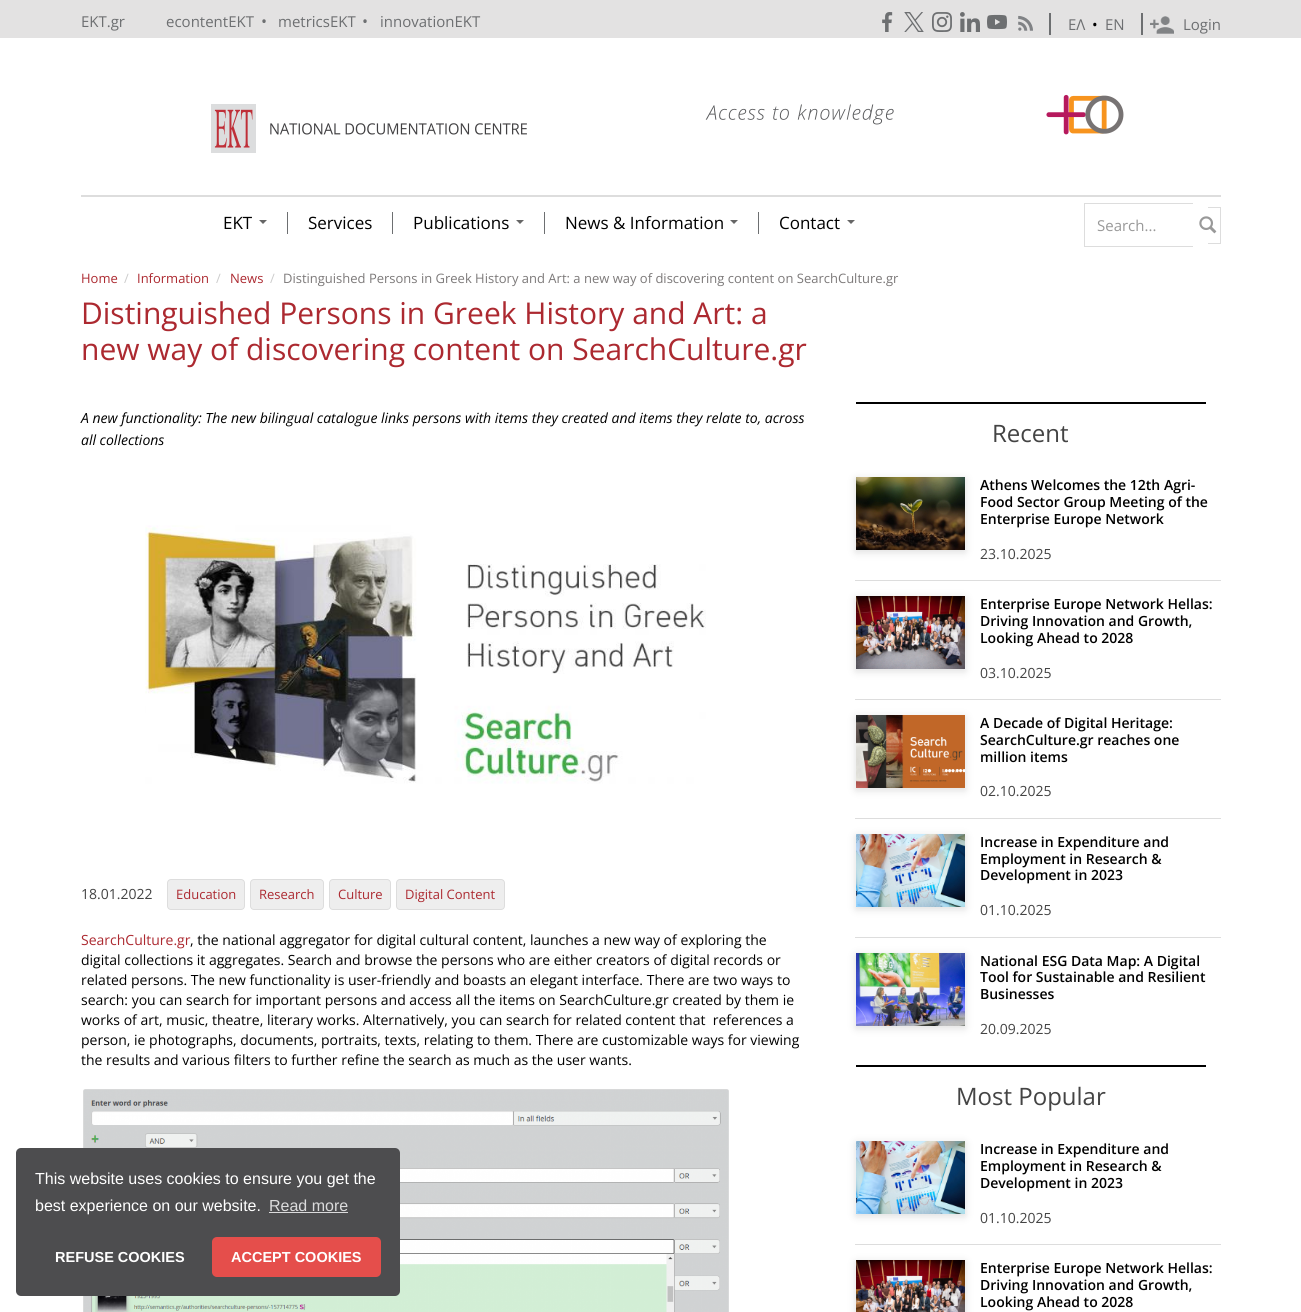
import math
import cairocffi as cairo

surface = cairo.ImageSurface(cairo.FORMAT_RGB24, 1301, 1312)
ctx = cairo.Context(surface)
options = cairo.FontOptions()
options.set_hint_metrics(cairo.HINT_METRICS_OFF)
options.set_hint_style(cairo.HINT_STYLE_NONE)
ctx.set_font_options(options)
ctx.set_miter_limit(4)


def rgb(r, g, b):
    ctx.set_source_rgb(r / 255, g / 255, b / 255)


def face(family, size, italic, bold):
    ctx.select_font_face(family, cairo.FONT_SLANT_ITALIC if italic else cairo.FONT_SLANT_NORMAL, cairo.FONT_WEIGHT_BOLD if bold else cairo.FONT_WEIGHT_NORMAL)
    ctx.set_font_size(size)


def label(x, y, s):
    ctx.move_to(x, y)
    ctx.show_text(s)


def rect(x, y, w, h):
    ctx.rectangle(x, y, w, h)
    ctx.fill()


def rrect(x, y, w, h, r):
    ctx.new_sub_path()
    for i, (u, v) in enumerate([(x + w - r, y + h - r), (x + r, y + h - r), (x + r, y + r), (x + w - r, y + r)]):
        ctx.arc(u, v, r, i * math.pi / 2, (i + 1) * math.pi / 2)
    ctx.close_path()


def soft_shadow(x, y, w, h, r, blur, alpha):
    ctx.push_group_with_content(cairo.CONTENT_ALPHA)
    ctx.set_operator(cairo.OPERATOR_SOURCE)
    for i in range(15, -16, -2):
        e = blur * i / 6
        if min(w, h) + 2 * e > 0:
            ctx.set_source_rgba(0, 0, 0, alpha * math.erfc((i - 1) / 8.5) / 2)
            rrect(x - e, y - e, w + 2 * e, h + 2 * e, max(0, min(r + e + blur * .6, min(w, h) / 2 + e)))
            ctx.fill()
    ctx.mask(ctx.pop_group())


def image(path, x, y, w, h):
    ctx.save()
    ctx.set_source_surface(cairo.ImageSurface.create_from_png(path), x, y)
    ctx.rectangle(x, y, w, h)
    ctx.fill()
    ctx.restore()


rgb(255, 255, 255)
ctx.paint()
rgb(227, 226, 226)
rect(0, 0, 1301, 38)
face('Open Sans', 15, 0, 0)
rgb(109, 111, 113)
label(81, 27, 'EKT.gr')
label(166, 27, 'econtentEKT')
face('Open Sans', 16, 0, 0)
label(261, 27, '•')
face('Open Sans', 15, 0, 0)
label(278, 27, 'metricsEKT')
face('Open Sans', 16, 0, 0)
label(362, 27, '•')
face('Open Sans', 15, 0, 0)
label(380, 27, 'innovationEKT')
image('image0.png', 882, 12, 11, 20)
image('image1.png', 904, 12, 20, 20)
image('image2.png', 932, 12, 20, 20)
image('image3.png', 960, 12, 20, 20)
image('image4.png', 987, 14, 20, 16)
image('image5.png', 1018, 15, 15, 16)
rect(1141, 13, 2, 22)
rect(1049, 13, 2, 22)
label(1068, 30, 'ΕΛ')
rgb(0, 0, 0)
label(1092, 30, '•')
rgb(109, 111, 113)
label(1105, 30, 'EN')
image('image6.png', 1150, 16, 24, 18)
label(1183, 30, 'Login')
image('image7.png', 211, 104, 316, 49)
image('image8.png', 705, 94, 419, 41)
rgb(221, 221, 221)
rect(81, 195, 1140, 2)
rgb(109, 111, 113)
rect(287, 212, 1, 22)
face('Open Sans', 17, 0, 0)
rgb(0, 0, 0)
label(223, 229, 'EKT')
rgb(102, 102, 102)
ctx.new_path()
ctx.move_to(259, 220)
ctx.line_to(267, 220)
ctx.line_to(263, 224)
ctx.close_path()
ctx.fill()
rgb(109, 111, 113)
rect(392, 212, 1, 22)
rgb(0, 0, 0)
label(308, 229, 'Services')
rgb(109, 111, 113)
rect(544, 212, 1, 22)
rgb(0, 0, 0)
label(413, 229, 'Publications')
rgb(102, 102, 102)
ctx.new_path()
ctx.move_to(516, 220)
ctx.line_to(524, 220)
ctx.line_to(520, 224)
ctx.close_path()
ctx.fill()
rgb(109, 111, 113)
rect(758, 212, 1, 22)
rgb(0, 0, 0)
label(565, 229, 'News & Information')
rgb(102, 102, 102)
ctx.new_path()
ctx.move_to(730, 220)
ctx.line_to(738, 220)
ctx.line_to(734, 224)
ctx.close_path()
ctx.fill()
rgb(0, 0, 0)
label(779, 229, 'Contact')
rgb(102, 102, 102)
ctx.new_path()
ctx.move_to(847, 220)
ctx.line_to(855, 220)
ctx.line_to(851, 224)
ctx.close_path()
ctx.fill()
rgb(221, 221, 221)
rect(1084, 203, 109, 1)
rect(1084, 246, 109, 1)
rect(1084, 203, 1, 44)
rect(1208, 207, 13, 1)
rect(1220, 207, 1, 37)
rect(1208, 243, 13, 1)
face('Open Sans', 15, 0, 0)
rgb(153, 153, 153)
label(1097, 231, 'Search...')
image('image9.png', 1199, 216, 18, 18)
face('Open Sans', 13, 0, 0)
rgb(172, 41, 48)
label(81, 283, 'Home')
rgb(204, 204, 204)
label(124, 283, '/')
rgb(172, 41, 48)
label(137, 283, 'Information')
rgb(204, 204, 204)
label(216, 283, '/')
rgb(172, 41, 48)
label(230, 283, 'News')
rgb(204, 204, 204)
label(270, 283, '/')
rgb(124, 121, 121)
label(283, 283, 'Distinguished Persons in Greek History and Art: a new way of discovering content on SearchCulture.gr')
face('Open Sans', 30, 0, 0)
rgb(172, 41, 48)
label(81, 324, 'Distinguished Persons in Greek History and Art: a')
label(81, 360, 'new way of discovering content on SearchCulture.gr')
face('Open Sans', 14, 1, 0)
rgb(0, 0, 0)
label(81, 423, 'A new functionality: The new bilingual catalogue links persons with items they created and items they relate to, across')
label(81, 445, 'all collections')
image('image10.png', 145, 525, 561, 259)
face('Open Sans', 14, 0, 0)
rgb(68, 68, 68)
label(81, 899, '18.01.2022')
rgb(238, 238, 238)
rrect(167.5, 879.5, 77, 30, 3.5)
ctx.fill_preserve()
rgb(221, 221, 221)
ctx.set_line_width(1)
ctx.stroke()
face('Open Sans', 13, 0, 0)
rgb(172, 41, 48)
label(176, 899, 'Education')
rgb(238, 238, 238)
rrect(250.5, 879.5, 73, 30, 3.5)
ctx.fill_preserve()
rgb(221, 221, 221)
ctx.stroke()
rgb(172, 41, 48)
label(259, 899, 'Research')
rgb(238, 238, 238)
rrect(329.5, 879.5, 61, 30, 3.5)
ctx.fill_preserve()
rgb(221, 221, 221)
ctx.stroke()
rgb(172, 41, 48)
label(338, 899, 'Culture')
rgb(238, 238, 238)
rrect(396.5, 879.5, 108, 30, 3.5)
ctx.fill_preserve()
rgb(221, 221, 221)
ctx.stroke()
rgb(172, 41, 48)
label(405, 899, 'Digital Content')
face('Open Sans', 14, 0, 0)
label(81, 945, 'SearchCulture.gr')
rgb(0, 0, 0)
label(190, 945, ', the national aggregator for digital cultural content, launches a new way of exploring the')
label(81, 965, 'digital collections it aggregates. Search and browse the persons who are either creators of digital records or')
label(81, 985, 'related persons. The new functionality is user-friendly and boasts an elegant interface. There are two ways to')
label(81, 1005, 'search: you can search for important persons and access all the items on SearchCulture.gr created by them ie')
label(81, 1025, 'works of art, music, theatre, literary works. Alternatively, you can search for related content that  references a')
label(81, 1045, 'person, ie photographs, documents, portraits, texts, relating to them. There are customizable ways for viewing')
label(81, 1065, 'the results and various filters to further refine the search as much as the user wants.')
image('image11.png', 83, 1089, 646, 223)
rect(856, 402, 350, 2)
face('Open Sans', 24, 0, 0)
rgb(68, 68, 68)
label(992, 442, 'Recent')
rgb(221, 221, 221)
rect(855, 580, 366, 1)
rgb(221, 221, 221)
soft_shadow(856, 479, 109, 73, 0, 4, 1)
image('image12.png', 856, 477, 109, 73)
face('Open Sans SemiBold', 14, 0, 0)
rgb(0, 0, 0)
label(980, 490, 'Athens Welcomes the 12th Agri-')
label(980, 507, 'Food Sector Group Meeting of the')
label(980, 524, 'Enterprise Europe Network')
face('Open Sans', 14, 0, 0)
rgb(68, 68, 68)
label(980, 559, '23.10.2025')
rgb(221, 221, 221)
rect(855, 699, 366, 1)
rgb(221, 221, 221)
soft_shadow(856, 598, 109, 73, 0, 4, 1)
image('image13.png', 856, 596, 109, 73)
face('Open Sans SemiBold', 14, 0, 0)
rgb(0, 0, 0)
label(980, 609, 'Enterprise Europe Network Hellas:')
label(980, 626, 'Driving Innovation and Growth,')
label(980, 643, 'Looking Ahead to 2028')
face('Open Sans', 14, 0, 0)
rgb(68, 68, 68)
label(980, 678, '03.10.2025')
rgb(221, 221, 221)
rect(855, 818, 366, 1)
rgb(221, 221, 221)
soft_shadow(856, 717, 109, 73, 0, 4, 1)
image('image14.png', 856, 715, 109, 73)
face('Open Sans SemiBold', 14, 0, 0)
rgb(0, 0, 0)
label(980, 728, 'A Decade of Digital Heritage:')
label(980, 745, 'SearchCulture.gr reaches one')
label(980, 762, 'million items')
face('Open Sans', 14, 0, 0)
rgb(68, 68, 68)
label(980, 796, '02.10.2025')
rgb(221, 221, 221)
rect(855, 937, 366, 1)
rgb(221, 221, 221)
soft_shadow(856, 836, 109, 73, 0, 4, 1)
image('image15.png', 856, 834, 109, 73)
face('Open Sans SemiBold', 14, 0, 0)
rgb(0, 0, 0)
label(980, 847, 'Increase in Expenditure and')
label(980, 864, 'Employment in Research &')
label(980, 880, 'Development in 2023')
face('Open Sans', 14, 0, 0)
rgb(68, 68, 68)
label(980, 915, '01.10.2025')
rgb(221, 221, 221)
soft_shadow(856, 955, 109, 73, 0, 4, 1)
image('image16.png', 856, 953, 109, 73)
face('Open Sans SemiBold', 14, 0, 0)
rgb(0, 0, 0)
label(980, 966, 'National ESG Data Map: A Digital')
label(980, 982, 'Tool for Sustainable and Resilient')
label(980, 999, 'Businesses')
face('Open Sans', 14, 0, 0)
rgb(68, 68, 68)
label(980, 1034, '20.09.2025')
rgb(0, 0, 0)
rect(856, 1065, 350, 2)
face('Open Sans', 24, 0, 0)
rgb(68, 68, 68)
label(956, 1105, 'Most Popular')
rgb(221, 221, 221)
rect(855, 1244, 366, 1)
rgb(221, 221, 221)
soft_shadow(856, 1143, 109, 73, 0, 4, 1)
image('image15.png', 856, 1141, 109, 73)
face('Open Sans SemiBold', 14, 0, 0)
rgb(0, 0, 0)
label(980, 1154, 'Increase in Expenditure and')
label(980, 1171, 'Employment in Research &')
label(980, 1188, 'Development in 2023')
face('Open Sans', 14, 0, 0)
rgb(68, 68, 68)
label(980, 1223, '01.10.2025')
rgb(221, 221, 221)
soft_shadow(856, 1262, 109, 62, 0, 4, 1)
image('image17.png', 856, 1260, 109, 52)
face('Open Sans SemiBold', 14, 0, 0)
rgb(0, 0, 0)
label(980, 1273, 'Enterprise Europe Network Hellas:')
label(980, 1290, 'Driving Innovation and Growth,')
label(980, 1307, 'Looking Ahead to 2028')
rgb(77, 77, 79)
rrect(16, 1148, 384, 148, 5)
ctx.fill()
face('Liberation Sans', 16, 0, 0)
rgb(255, 255, 255)
label(35, 1184, 'This website uses cookies to ensure you get the')
label(35, 1211, 'best experience on our website.')
rgb(219, 219, 220)
label(269, 1211, 'Read more')
rect(269, 1212, 79, 1)
face('Liberation Sans', 14.5, 0, 1)
rgb(255, 255, 255)
label(55, 1262, 'REFUSE COOKIES')
rgb(229, 78, 75)
rrect(212, 1237, 169, 40, 5)
ctx.fill()
rgb(255, 255, 255)
label(231, 1262, 'ACCEPT COOKIES')
surface.write_to_png('render.png')
